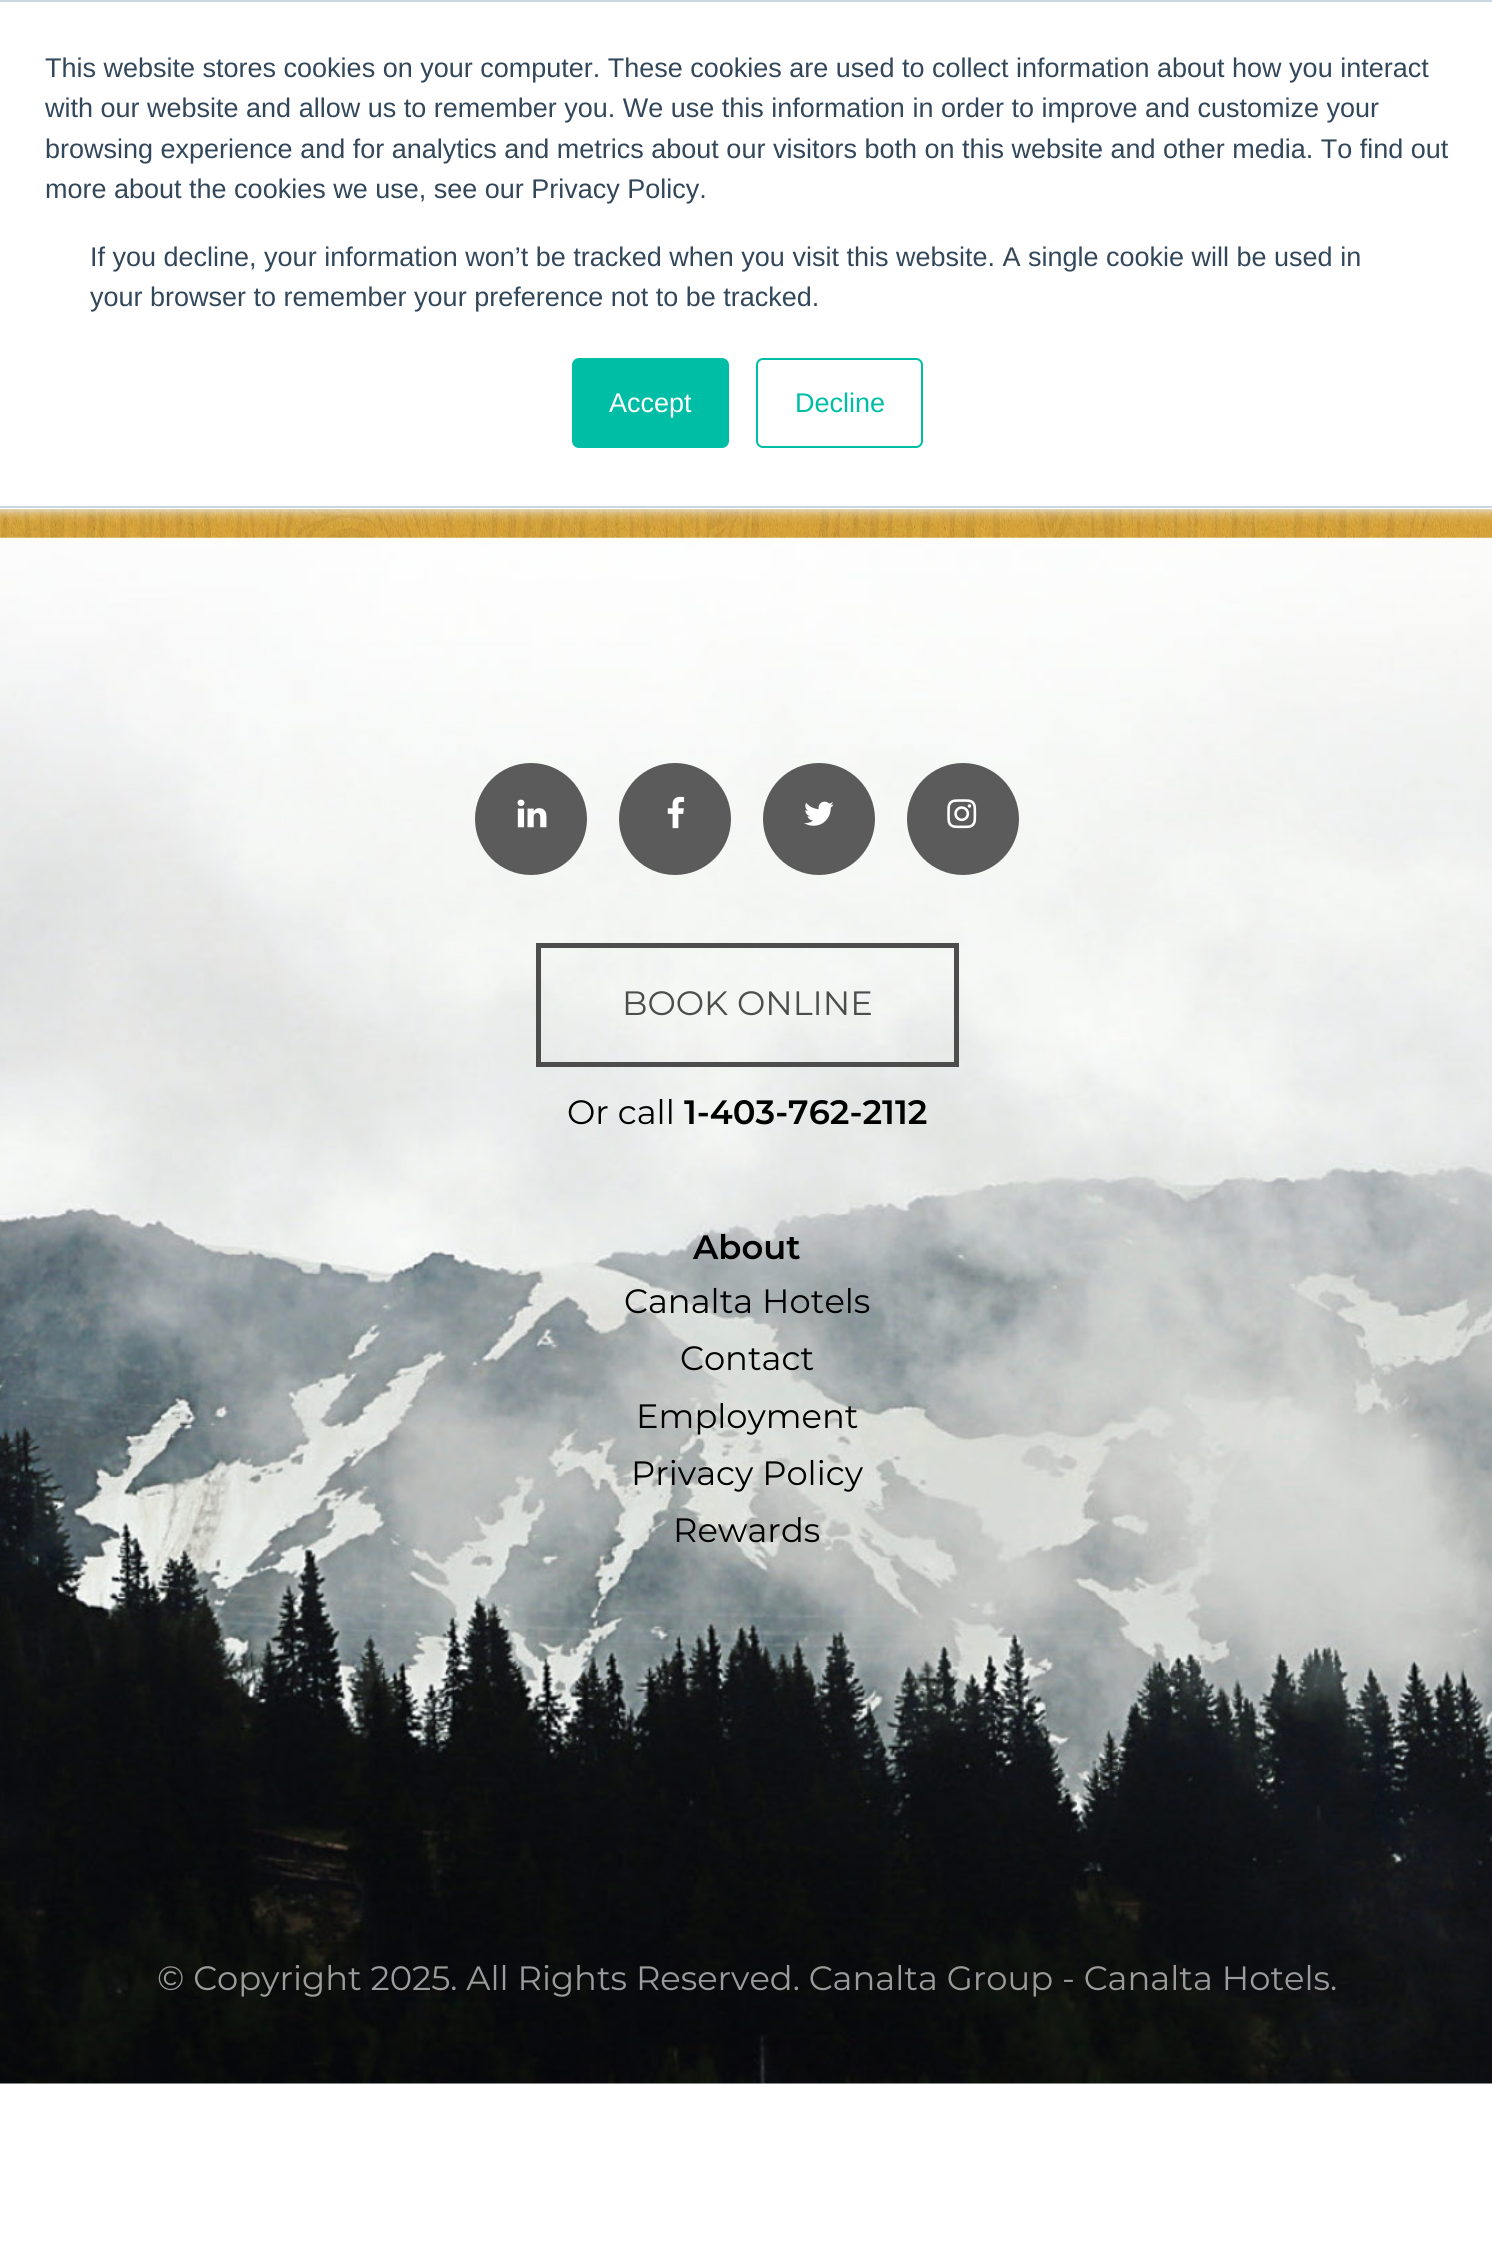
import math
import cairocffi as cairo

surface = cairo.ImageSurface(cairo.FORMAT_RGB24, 1492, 2255)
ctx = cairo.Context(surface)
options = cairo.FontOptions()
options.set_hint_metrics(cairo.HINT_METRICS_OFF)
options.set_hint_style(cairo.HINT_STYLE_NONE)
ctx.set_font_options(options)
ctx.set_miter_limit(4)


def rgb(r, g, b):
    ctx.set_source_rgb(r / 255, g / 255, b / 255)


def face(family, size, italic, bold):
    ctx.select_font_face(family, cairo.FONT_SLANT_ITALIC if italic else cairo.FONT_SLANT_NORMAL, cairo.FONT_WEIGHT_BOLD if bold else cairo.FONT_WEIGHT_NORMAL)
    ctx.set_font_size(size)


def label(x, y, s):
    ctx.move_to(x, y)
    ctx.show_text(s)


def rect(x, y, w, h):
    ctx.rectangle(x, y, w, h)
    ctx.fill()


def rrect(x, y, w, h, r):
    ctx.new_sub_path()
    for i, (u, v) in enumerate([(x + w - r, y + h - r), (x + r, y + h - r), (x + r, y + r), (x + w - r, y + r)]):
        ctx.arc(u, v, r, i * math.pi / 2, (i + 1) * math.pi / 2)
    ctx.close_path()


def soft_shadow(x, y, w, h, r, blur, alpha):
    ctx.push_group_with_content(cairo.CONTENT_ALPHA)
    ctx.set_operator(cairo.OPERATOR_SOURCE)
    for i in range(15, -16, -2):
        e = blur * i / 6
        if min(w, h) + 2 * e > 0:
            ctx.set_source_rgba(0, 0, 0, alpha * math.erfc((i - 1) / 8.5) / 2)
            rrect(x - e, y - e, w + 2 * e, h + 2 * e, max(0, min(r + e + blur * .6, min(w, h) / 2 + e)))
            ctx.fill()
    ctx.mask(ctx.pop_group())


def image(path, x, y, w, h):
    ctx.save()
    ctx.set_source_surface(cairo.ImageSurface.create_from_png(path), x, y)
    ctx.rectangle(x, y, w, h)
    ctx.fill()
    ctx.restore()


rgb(255, 255, 255)
ctx.paint()
image('image0.png', 0, 509, 1492, 29)
rgb(234, 240, 246)
soft_shadow(0, 2, 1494, 509, 0, 5.5, 1)
rgb(255, 255, 255)
rect(0, 2, 1492, 507)
rgb(203, 214, 226)
rect(0, 0, 1492, 2)
rect(0, 506, 1492, 2)
face('Liberation Sans', 27, 0, 0)
rgb(51, 71, 91)
label(45, 77, 'This website stores cookies on your computer. These cookies are used to collect information about how you interact')
label(45, 117, 'with our website and allow us to remember you. We use this information in order to improve and customize your')
label(45, 158, 'browsing experience and for analytics and metrics about our visitors both on this website and other media. To find out')
label(45, 198, 'more about the cookies we use, see our Privacy Policy.')
label(90, 266, 'If you decline, your information won’t be tracked when you visit this website. A single cookie will be used in')
label(90, 306, 'your browser to remember your preference not to be tracked.')
rgb(0, 189, 165)
rrect(573, 359, 155, 88, 6)
ctx.fill_preserve()
ctx.stroke()
rgb(255, 255, 255)
label(609, 412, 'Accept')
rrect(757, 359, 165, 88, 6)
rgb(0, 189, 165)
ctx.stroke()
label(795, 412, 'Decline')
image('image1.png', 0, 538, 1492, 1546)
rgb(91, 91, 91)
ctx.arc(531, 819, 56, 0, 2 * math.pi)
ctx.fill()
image('image2.png', 517, 799, 30, 29)
ctx.arc(675, 819, 56, 0, 2 * math.pi)
ctx.fill()
image('image3.png', 667, 796, 18, 33)
ctx.arc(819, 819, 56, 0, 2 * math.pi)
ctx.fill()
image('image4.png', 804, 801, 30, 25)
ctx.arc(963, 819, 56, 0, 2 * math.pi)
ctx.fill()
image('image5.png', 947, 799, 30, 30)
ctx.rectangle(538.5, 945.5, 418, 119)
rgb(77, 77, 77)
ctx.set_line_width(5)
ctx.stroke()
face('Montserrat', 33.75, 0, 0)
label(622, 1015, 'BOOK ONLINE')
rgb(0, 0, 0)
label(567, 1124, 'Or call')
face('Montserrat SemiBold', 33.75, 0, 0)
label(684, 1124, '1-403-762-2112')
label(693, 1259, 'About')
face('Montserrat', 33.75, 0, 0)
label(624, 1313, 'Canalta Hotels')
label(680, 1370, 'Contact')
label(636, 1428, 'Employment')
label(631, 1485, 'Privacy Policy')
label(673, 1542, 'Rewards')
rgb(155, 155, 155)
label(157, 1990, '© Copyright 2025. All Rights Reserved. Canalta Group - Canalta Hotels.')
surface.write_to_png('render.png')
